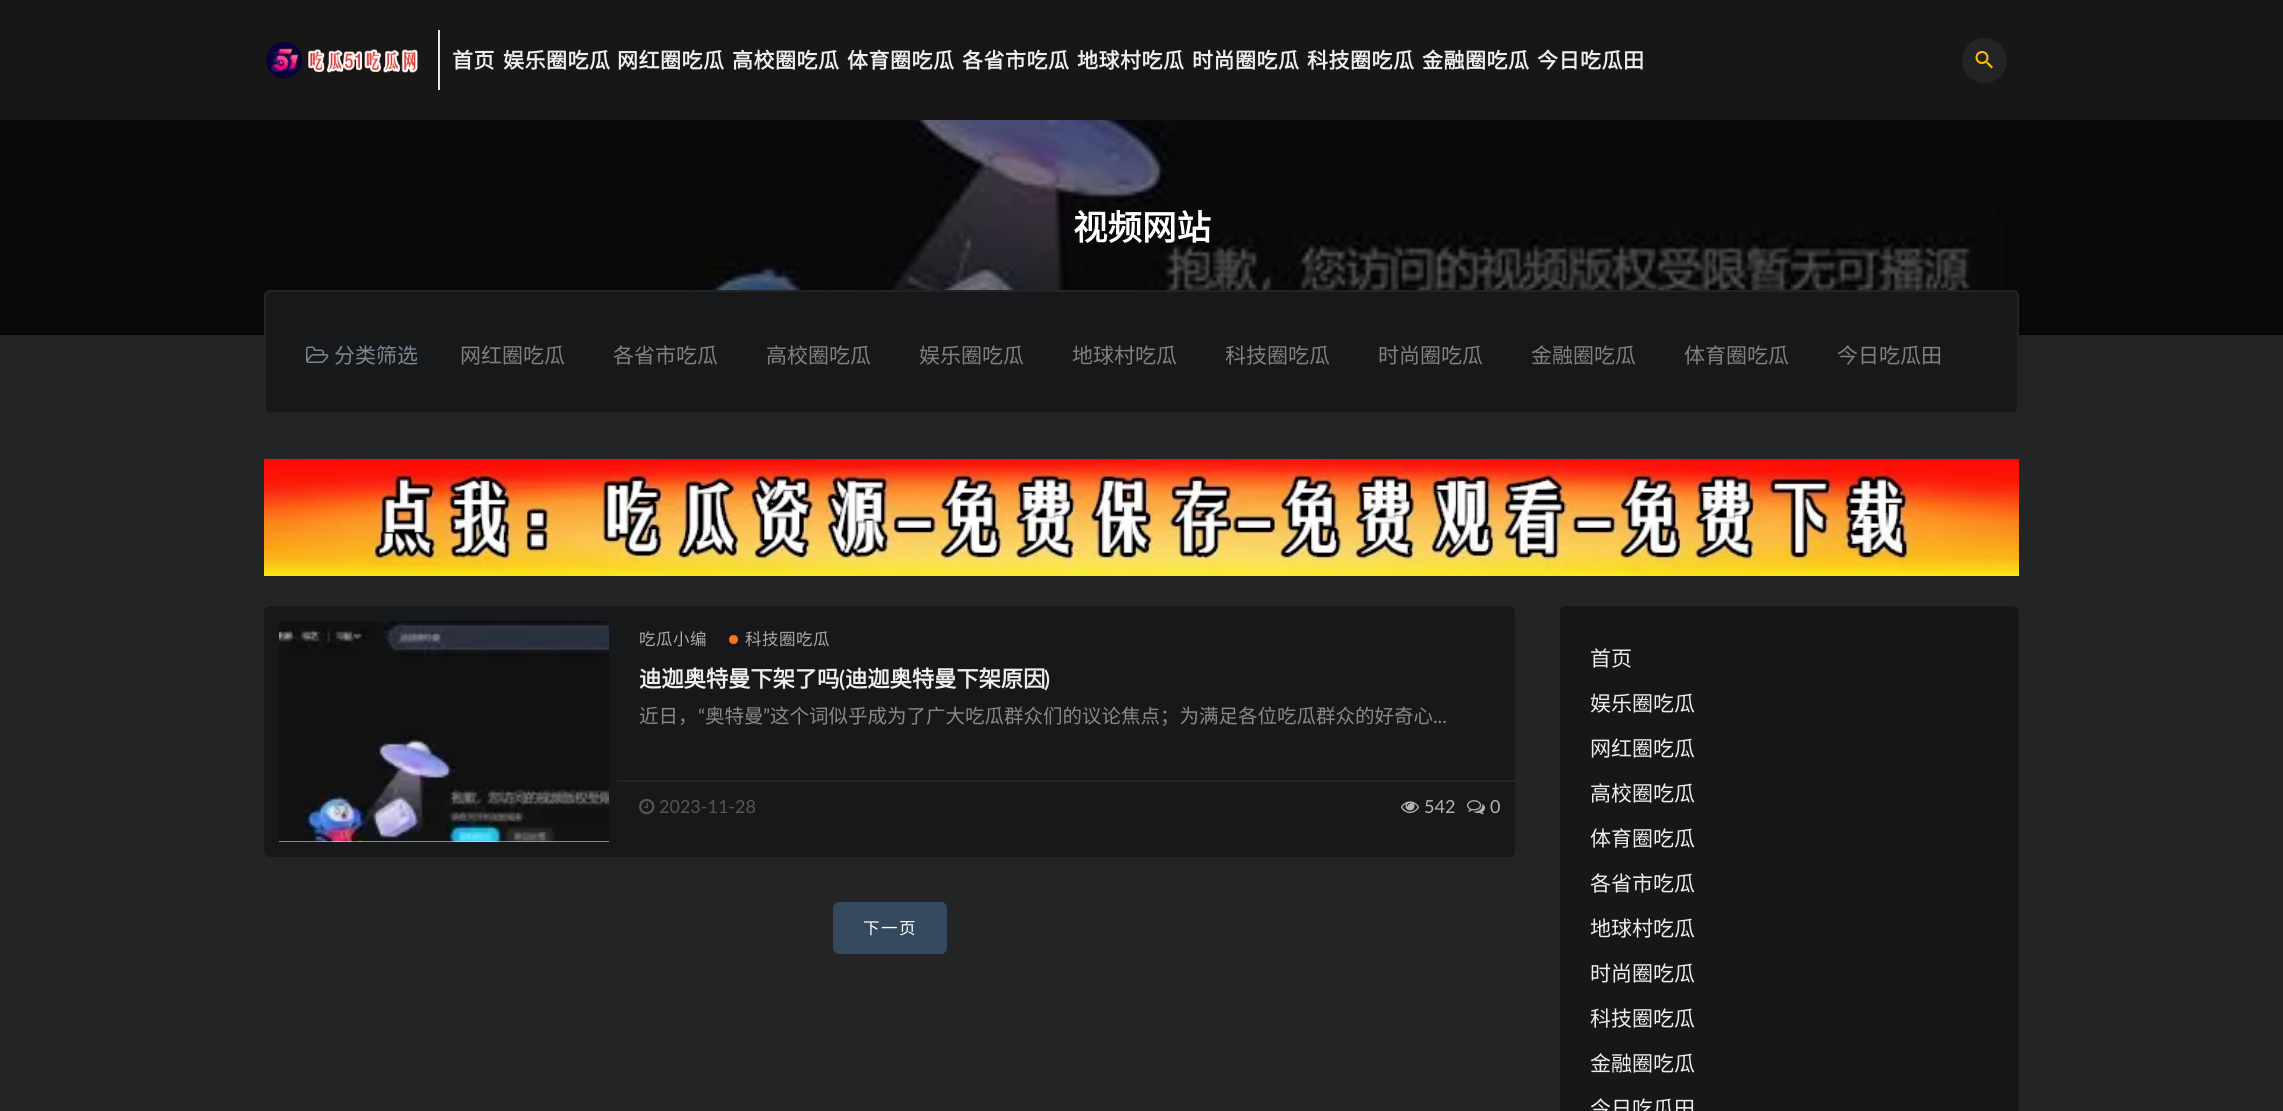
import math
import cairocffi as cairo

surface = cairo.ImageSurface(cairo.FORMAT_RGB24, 2283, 1111)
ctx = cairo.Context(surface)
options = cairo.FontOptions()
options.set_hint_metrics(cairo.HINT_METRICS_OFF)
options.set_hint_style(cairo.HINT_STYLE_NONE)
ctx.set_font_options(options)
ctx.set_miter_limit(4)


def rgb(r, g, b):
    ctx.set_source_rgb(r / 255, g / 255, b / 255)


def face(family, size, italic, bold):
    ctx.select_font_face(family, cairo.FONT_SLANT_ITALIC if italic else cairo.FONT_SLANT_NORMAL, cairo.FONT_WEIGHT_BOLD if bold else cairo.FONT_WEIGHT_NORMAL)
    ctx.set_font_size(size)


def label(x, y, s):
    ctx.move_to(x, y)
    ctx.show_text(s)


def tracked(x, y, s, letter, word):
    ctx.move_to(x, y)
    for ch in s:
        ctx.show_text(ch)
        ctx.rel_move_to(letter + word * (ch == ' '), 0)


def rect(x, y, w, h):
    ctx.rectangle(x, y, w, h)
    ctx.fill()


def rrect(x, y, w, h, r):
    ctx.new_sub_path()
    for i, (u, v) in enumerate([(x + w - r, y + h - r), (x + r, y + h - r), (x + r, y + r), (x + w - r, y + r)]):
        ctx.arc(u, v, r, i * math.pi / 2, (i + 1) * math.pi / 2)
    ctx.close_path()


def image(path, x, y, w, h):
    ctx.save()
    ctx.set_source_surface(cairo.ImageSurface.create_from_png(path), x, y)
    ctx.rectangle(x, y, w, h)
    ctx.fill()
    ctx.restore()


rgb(35, 36, 37)
ctx.paint()
rgb(25, 22, 22)
rect(0, 0, 2283, 120)
image('image0.png', 266, 42, 152, 36)
rgb(230, 230, 230)
rect(438, 30, 2, 60)
face('Noto Sans CJK SC', 21, 0, 1)
rgb(238, 238, 238)
tracked(452, 68, '首页', 0.5, 0)
tracked(503, 68, '娱乐圈吃瓜', 0.5, 0)
tracked(617, 68, '网红圈吃瓜', 0.5, 0)
tracked(732, 68, '高校圈吃瓜', 0.5, 0)
tracked(847, 68, '体育圈吃瓜', 0.5, 0)
tracked(962, 68, '各省市吃瓜', 0.5, 0)
tracked(1077, 68, '地球村吃瓜', 0.5, 0)
tracked(1192, 68, '时尚圈吃瓜', 0.5, 0)
tracked(1307, 68, '科技圈吃瓜', 0.5, 0)
tracked(1422, 68, '金融圈吃瓜', 0.5, 0)
tracked(1537, 68, '今日吃瓜田', 0.5, 0)
rgb(35, 36, 37)
ctx.new_path()
ctx.arc(1984.5, 60.5, 22.5, 0, 2 * math.pi)
ctx.fill()
image('image1.png', 1975, 51, 18, 18)
rgb(0, 0, 0)
rect(0, 334, 2283, 1)
image('image2.png', 0, 120, 2283, 215)
face('Noto Sans CJK SC', 34.5, 0, 1)
rgb(255, 255, 255)
label(1073, 240, '视频网站')
rgb(23, 24, 25)
rrect(265, 291, 1753, 122, 5)
ctx.fill_preserve()
rgb(35, 36, 37)
ctx.stroke()
image('image3.png', 306, 346, 23, 17)
face('Noto Sans CJK SC', 21, 0, 0)
rgb(123, 134, 149)
label(334, 363, '分类筛选')
rgb(128, 128, 128)
label(460, 363, '网红圈吃瓜')
label(613, 363, '各省市吃瓜')
label(766, 363, '高校圈吃瓜')
label(919, 363, '娱乐圈吃瓜')
label(1072, 363, '地球村吃瓜')
label(1225, 363, '科技圈吃瓜')
label(1378, 363, '时尚圈吃瓜')
label(1531, 363, '金融圈吃瓜')
label(1684, 363, '体育圈吃瓜')
label(1837, 363, '今日吃瓜田')
image('image4.png', 264, 459, 1755, 117)
rgb(23, 24, 25)
rrect(264, 606, 1251, 251, 6)
ctx.fill()
rgb(255, 255, 255)
rect(279, 841, 330, 1)
image('image5.png', 279, 621, 330, 221)
face('Noto Sans CJK SC', 16.5, 0, 0)
rgb(170, 170, 170)
tracked(639, 645, '吃瓜小编', 0.5, 0)
rgb(253, 114, 31)
ctx.new_path()
ctx.arc(733.5, 639.5, 4.5, 0, 2 * math.pi)
ctx.fill()
rgb(170, 170, 170)
tracked(745, 645, '科技圈吃瓜', 0.5, 0)
face('Noto Sans CJK SC', 22.5, 0, 1)
rgb(238, 238, 238)
tracked(639, 687, '迪迦奥特曼下架了吗', -0.25, 0)
face('Lato SemiBold', 22.5, 0, 0)
tracked(839, 687, '(', -0.25, 0)
face('Noto Sans CJK SC', 22.5, 0, 1)
tracked(845, 687, '迪迦奥特曼下架原因', -0.25, 0)
face('Lato SemiBold', 22.5, 0, 0)
tracked(1044, 687, ')', -0.25, 0)
face('Noto Sans CJK SC', 19.5, 0, 0)
rgb(136, 136, 136)
label(639, 723, '近日，')
face('Lato', 19.5, 0, 0)
label(698, 723, '“')
face('Noto Sans CJK SC', 19.5, 0, 0)
label(705, 723, '奥特曼')
face('Lato', 19.5, 0, 0)
label(763, 723, '”')
face('Noto Sans CJK SC', 19.5, 0, 0)
label(770, 723, '这个词似乎成为了广大吃瓜群众们的议论焦点；为满足各位吃瓜群众的好奇心')
face('Lato', 19.5, 0, 0)
label(1433, 723, '...')
rgb(35, 36, 37)
rect(617, 780, 906, 2)
image('image6.png', 639, 798, 16, 17)
face('Lato', 18, 0, 0)
rgb(85, 85, 85)
label(659, 813, '2023-11-28')
image('image7.png', 1401, 801, 18, 12)
rgb(180, 180, 180)
label(1424, 813, '542')
image('image8.png', 1467, 800, 18, 15)
label(1490, 813, '0')
rgb(52, 73, 94)
rrect(833, 902, 114, 52, 6)
ctx.fill()
face('Noto Sans CJK SC', 16.5, 0, 0)
rgb(255, 255, 255)
tracked(863, 934, '下一页', 1.5, 0)
rgb(24, 22, 22)
rrect(1560, 606, 459, 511, 6)
ctx.fill()
face('Noto Sans CJK SC', 21, 0, 0)
rgb(238, 238, 238)
label(1590, 666, '首页')
label(1590, 711, '娱乐圈吃瓜')
label(1590, 756, '网红圈吃瓜')
label(1590, 801, '高校圈吃瓜')
label(1590, 846, '体育圈吃瓜')
label(1590, 891, '各省市吃瓜')
label(1590, 936, '地球村吃瓜')
label(1590, 981, '时尚圈吃瓜')
label(1590, 1026, '科技圈吃瓜')
label(1590, 1071, '金融圈吃瓜')
label(1590, 1116, '今日吃瓜田')
surface.write_to_png('render.png')
